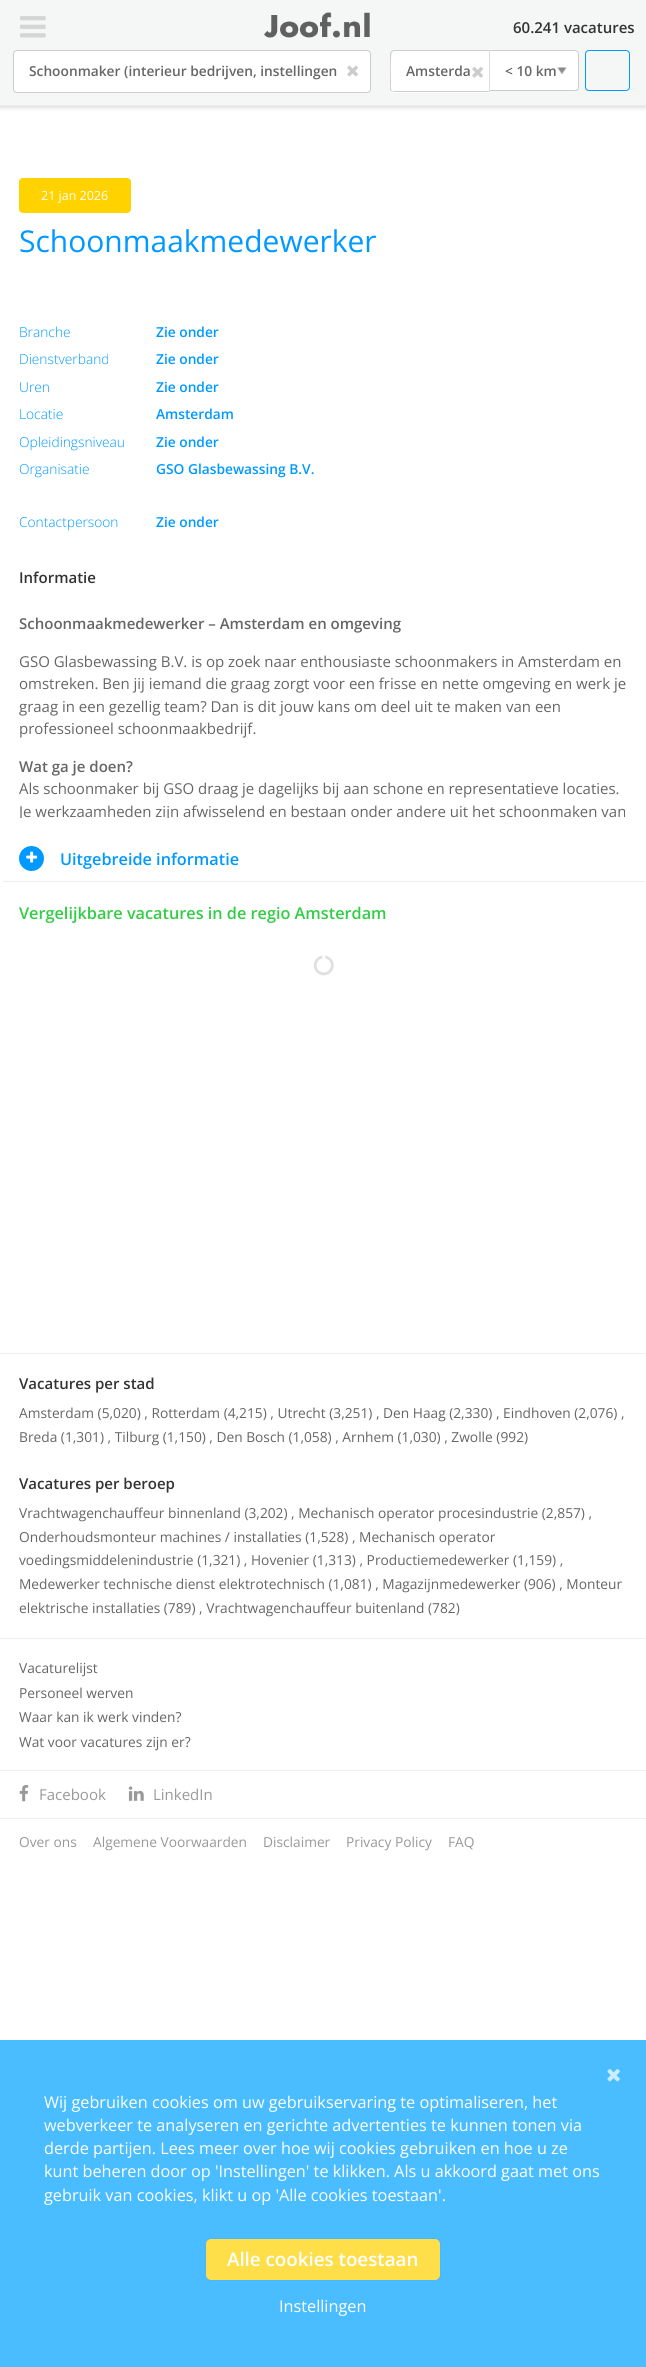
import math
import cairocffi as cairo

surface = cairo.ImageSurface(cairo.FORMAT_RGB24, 646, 2367)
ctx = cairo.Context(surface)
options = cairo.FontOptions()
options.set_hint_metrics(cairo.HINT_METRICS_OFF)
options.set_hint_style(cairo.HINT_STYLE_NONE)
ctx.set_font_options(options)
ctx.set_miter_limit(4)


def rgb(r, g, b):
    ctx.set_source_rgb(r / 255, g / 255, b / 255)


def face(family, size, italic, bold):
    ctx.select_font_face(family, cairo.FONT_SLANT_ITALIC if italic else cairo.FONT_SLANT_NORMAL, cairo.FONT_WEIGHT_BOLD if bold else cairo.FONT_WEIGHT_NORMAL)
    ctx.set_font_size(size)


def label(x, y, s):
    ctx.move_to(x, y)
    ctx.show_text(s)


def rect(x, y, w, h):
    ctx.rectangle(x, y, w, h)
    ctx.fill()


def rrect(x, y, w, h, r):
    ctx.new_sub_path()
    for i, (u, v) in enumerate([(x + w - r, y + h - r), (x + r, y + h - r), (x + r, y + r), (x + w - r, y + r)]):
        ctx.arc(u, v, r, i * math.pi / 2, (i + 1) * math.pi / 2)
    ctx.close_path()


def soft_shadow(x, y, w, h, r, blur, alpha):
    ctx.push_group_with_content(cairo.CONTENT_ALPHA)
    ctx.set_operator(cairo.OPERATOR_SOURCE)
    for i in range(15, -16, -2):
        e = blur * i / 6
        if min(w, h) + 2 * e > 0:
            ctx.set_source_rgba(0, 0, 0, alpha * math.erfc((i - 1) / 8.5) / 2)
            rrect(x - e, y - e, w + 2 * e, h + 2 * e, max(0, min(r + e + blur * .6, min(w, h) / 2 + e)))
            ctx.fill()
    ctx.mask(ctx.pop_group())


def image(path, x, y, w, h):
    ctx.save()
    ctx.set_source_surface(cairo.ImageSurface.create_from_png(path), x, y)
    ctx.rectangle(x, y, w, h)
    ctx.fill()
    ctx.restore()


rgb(255, 255, 255)
ctx.paint()
rgb(0, 0, 0)
soft_shadow(0, 0, 646, 106, 0, 3, 0.25)
rgb(245, 246, 246)
rect(0, 0, 646, 105)
face('Open Sans SemiBold', 15, 0, 0)
rgb(51, 51, 51)
label(513, 33, '60.241 vacatures')
rgb(238, 238, 238)
rect(0, 105, 646, 1)
image('image0.png', 20, 16, 26, 22)
image('image1.png', 263, 12, 107, 26)
rgb(255, 255, 255)
rrect(13.5, 50.5, 357, 42, 3.5)
ctx.fill_preserve()
rgb(204, 204, 204)
ctx.set_line_width(1)
ctx.stroke()
face('Open Sans SemiBold', 13.75, 0, 0)
rgb(102, 102, 102)
label(29, 76, 'Schoonmaker (interieur bedrijven, instellingen')
image('image2.png', 347, 65, 11, 12)
rgb(255, 255, 255)
ctx.new_path()
ctx.move_to(394, 50)
ctx.line_to(490, 50)
ctx.line_to(490, 93)
ctx.line_to(394, 93)
ctx.curve_to(392, 93, 390, 91, 390, 89)
ctx.line_to(390, 54)
ctx.curve_to(390, 52, 392, 50, 394, 50)
ctx.close_path()
ctx.fill()
rgb(204, 204, 204)
ctx.new_path()
ctx.move_to(394, 50)
ctx.line_to(391, 51)
ctx.line_to(392, 52)
ctx.line_to(394, 51)
ctx.line_to(489, 51)
ctx.line_to(490, 50)
ctx.close_path()
ctx.fill()
rgb(221, 221, 221)
ctx.new_path()
ctx.move_to(490, 50)
ctx.line_to(489, 51)
ctx.line_to(489, 91)
ctx.line_to(488, 91)
ctx.line_to(490, 92)
ctx.close_path()
ctx.fill()
rgb(204, 204, 204)
ctx.new_path()
ctx.move_to(490, 92)
ctx.line_to(394, 92)
ctx.line_to(391, 91)
ctx.line_to(392, 91)
ctx.line_to(394, 91)
ctx.line_to(488, 91)
ctx.close_path()
ctx.fill()
ctx.new_path()
ctx.move_to(390, 54)
ctx.line_to(390, 90)
ctx.line_to(391, 91)
ctx.line_to(392, 91)
ctx.curve_to(390, 89, 391, 84, 391, 83)
ctx.curve_to(391, 79, 390, 54, 392, 52)
ctx.line_to(391, 51)
ctx.close_path()
ctx.fill()
rgb(102, 102, 102)
label(406, 76, 'Amsterda')
image('image3.png', 472, 67, 11, 11)
rgb(255, 255, 255)
ctx.new_path()
ctx.move_to(490, 50)
ctx.line_to(575, 50)
ctx.curve_to(577, 50, 579, 52, 579, 54)
ctx.line_to(579, 87)
ctx.curve_to(579, 89, 577, 91, 575, 91)
ctx.line_to(490, 91)
ctx.close_path()
ctx.fill()
rgb(204, 204, 204)
ctx.set_fill_rule(cairo.FILL_RULE_EVEN_ODD)
ctx.new_path()
ctx.move_to(490, 50)
ctx.line_to(575, 50)
ctx.curve_to(577, 50, 579, 52, 579, 54)
ctx.line_to(579, 88)
ctx.curve_to(579, 90, 577, 91, 575, 91)
ctx.line_to(490, 91)
ctx.close_path()
ctx.move_to(490, 51)
ctx.line_to(575, 51)
ctx.curve_to(576, 51, 578, 52, 578, 54)
ctx.line_to(578, 88)
ctx.curve_to(578, 89, 576, 90, 575, 90)
ctx.line_to(490, 90)
ctx.close_path()
ctx.fill()
rgb(102, 102, 102)
label(505, 76, '< 10 km')
image('image4.png', 557, 67, 10, 8)
rrect(585.5, 50.5, 44, 40, 3.5)
rgb(0, 153, 255)
ctx.stroke()
rgb(255, 210, 0)
rrect(19, 178, 112, 35, 4)
ctx.fill()
face('Open Sans', 12.5, 0, 0)
rgb(255, 255, 255)
label(41, 200, '21 jan 2026')
face('Open Sans', 30, 0, 0)
rgb(0, 153, 255)
label(19, 252, 'Schoonmaakmedewerker')
face('Open Sans Light', 13.75, 0, 0)
label(19, 337, 'Branche')
face('Open Sans SemiBold', 13.75, 0, 0)
label(156, 337, 'Zie onder')
face('Open Sans Light', 13.75, 0, 0)
label(19, 364, 'Dienstverband')
face('Open Sans SemiBold', 13.75, 0, 0)
label(156, 364, 'Zie onder')
face('Open Sans Light', 13.75, 0, 0)
label(19, 392, 'Uren')
face('Open Sans SemiBold', 13.75, 0, 0)
label(156, 392, 'Zie onder')
face('Open Sans Light', 13.75, 0, 0)
label(19, 419, 'Locatie')
face('Open Sans SemiBold', 13.75, 0, 0)
label(156, 419, 'Amsterdam')
face('Open Sans Light', 13.75, 0, 0)
label(19, 447, 'Opleidingsniveau')
face('Open Sans SemiBold', 13.75, 0, 0)
label(156, 447, 'Zie onder')
face('Open Sans Light', 13.75, 0, 0)
label(19, 474, 'Organisatie')
face('Open Sans SemiBold', 13.75, 0, 0)
label(156, 474, 'GSO Glasbewassing B.V.')
face('Open Sans Light', 13.75, 0, 0)
label(19, 527, 'Contactpersoon')
face('Open Sans SemiBold', 13.75, 0, 0)
label(156, 527, 'Zie onder')
face('Open Sans SemiBold', 15, 0, 0)
rgb(51, 51, 51)
label(19, 583, 'Informatie')
rgb(102, 102, 102)
label(19, 629, 'Schoonmaakmedewerker – Amsterdam en omgeving')
face('Open Sans', 15, 0, 0)
label(19, 667, 'GSO Glasbewassing B.V. is op zoek naar enthousiaste schoonmakers in Amsterdam en')
label(19, 689, 'omstreken. Ben jij iemand die graag zorgt voor een frisse en nette omgeving en werk je')
label(19, 712, 'graag in een gezellig team? Dan is dit jouw kans om deel uit te maken van een')
label(19, 734, 'professioneel schoonmaakbedrijf.')
face('Open Sans SemiBold', 15, 0, 0)
label(19, 772, 'Wat ga je doen?')
face('Open Sans', 15, 0, 0)
label(19, 794, 'Als schoonmaker bij GSO draag je dagelijks bij aan schone en representatieve locaties.')
ctx.save()
ctx.set_fill_rule(cairo.FILL_RULE_WINDING)
ctx.rectangle(19, 599, 609, 219)
ctx.clip()
label(19, 817, 'Je werkzaamheden zijn afwisselend en bestaan onder andere uit het schoonmaken van')
ctx.restore()
rgb(238, 238, 238)
rect(3, 881, 642, 1)
rgb(0, 153, 255)
ctx.new_path()
ctx.arc(31.5, 858.5, 12.5, 0, 2 * math.pi)
ctx.fill()
image('image5.png', 26, 851, 12, 12)
face('Open Sans SemiBold', 16.25, 0, 0)
label(60, 865, 'Uitgebreide informatie')
rgb(49, 205, 67)
label(19, 919, 'Vergelijkbare vacatures in de regio Amsterdam')
image('image6.png', 313, 955, 21, 21)
rgb(238, 238, 238)
rect(0, 1353, 646, 1)
face('Open Sans SemiBold', 15, 0, 0)
rgb(51, 51, 51)
label(19, 1389, 'Vacatures per stad')
face('Open Sans', 13.75, 0, 0)
rgb(102, 102, 102)
label(19, 1418, 'Amsterdam (5,020) , Rotterdam (4,215) , Utrecht (3,251) , Den Haag (2,330) , Eindhoven (2,076) ,')
label(19, 1442, 'Breda (1,301) , Tilburg (1,150) , Den Bosch (1,058) , Arnhem (1,030) , Zwolle (992)')
face('Open Sans SemiBold', 15, 0, 0)
rgb(51, 51, 51)
label(19, 1489, 'Vacatures per beroep')
face('Open Sans', 13.75, 0, 0)
rgb(102, 102, 102)
label(19, 1518, 'Vrachtwagenchauffeur binnenland (3,202) , Mechanisch operator procesindustrie (2,857) ,')
label(19, 1542, 'Onderhoudsmonteur machines / installaties (1,528) , Mechanisch operator')
label(19, 1565, 'voedingsmiddelenindustrie (1,321) , Hovenier (1,313) , Productiemedewerker (1,159) ,')
label(19, 1589, 'Medewerker technische dienst elektrotechnisch (1,081) , Magazijnmedewerker (906) , Monteur')
label(19, 1613, 'elektrische installaties (789) , Vrachtwagenchauffeur buitenland (782)')
rgb(238, 238, 238)
rect(0, 1638, 646, 1)
rgb(102, 102, 102)
label(19, 1673, 'Vacaturelijst')
label(19, 1698, 'Personeel werven')
label(19, 1722, 'Waar kan ik werk vinden?')
label(19, 1747, 'Wat voor vacatures zijn er?')
rgb(238, 238, 238)
rect(0, 1770, 646, 1)
rect(0, 1818, 646, 1)
image('image7.png', 19, 1785, 10, 17)
face('Open Sans', 15, 0, 0)
rgb(153, 153, 153)
label(39, 1800, 'Facebook')
image('image8.png', 128, 1786, 16, 15)
label(153, 1800, 'LinkedIn')
face('Open Sans', 13.75, 0, 0)
label(19, 1847, 'Over ons')
label(93, 1847, 'Algemene Voorwaarden')
label(263, 1847, 'Disclaimer')
label(346, 1847, 'Privacy Policy')
label(448, 1847, 'FAQ')
rgb(73, 189, 255)
rect(0, 2040, 646, 327)
image('image9.png', 607, 2069, 13, 13)
face('Open Sans', 16.25, 0, 0)
rgb(255, 255, 255)
label(44, 2108, 'Wij gebruiken cookies om uw gebruikservaring te optimaliseren, het')
label(44, 2131, 'webverkeer te analyseren en gerichte advertenties te kunnen tonen via')
label(44, 2154, 'derde partijen. Lees meer over hoe wij cookies gebruiken en hoe u ze')
label(44, 2177, 'kunt beheren door op \'Instellingen\' te klikken. Als u akkoord gaat met ons')
label(44, 2201, 'gebruik van cookies, klikt u op \'Alle cookies toestaan\'.')
rgb(255, 223, 73)
rrect(205.5, 2238.5, 235, 42, 5.5)
ctx.fill_preserve()
rgb(73, 182, 255)
ctx.stroke()
face('Open Sans SemiBold', 18.75, 0, 0)
rgb(255, 255, 255)
label(227, 2266, 'Alle cookies toestaan')
face('Open Sans', 16.25, 0, 0)
label(279, 2312, 'Instellingen')
surface.write_to_png('render.png')
